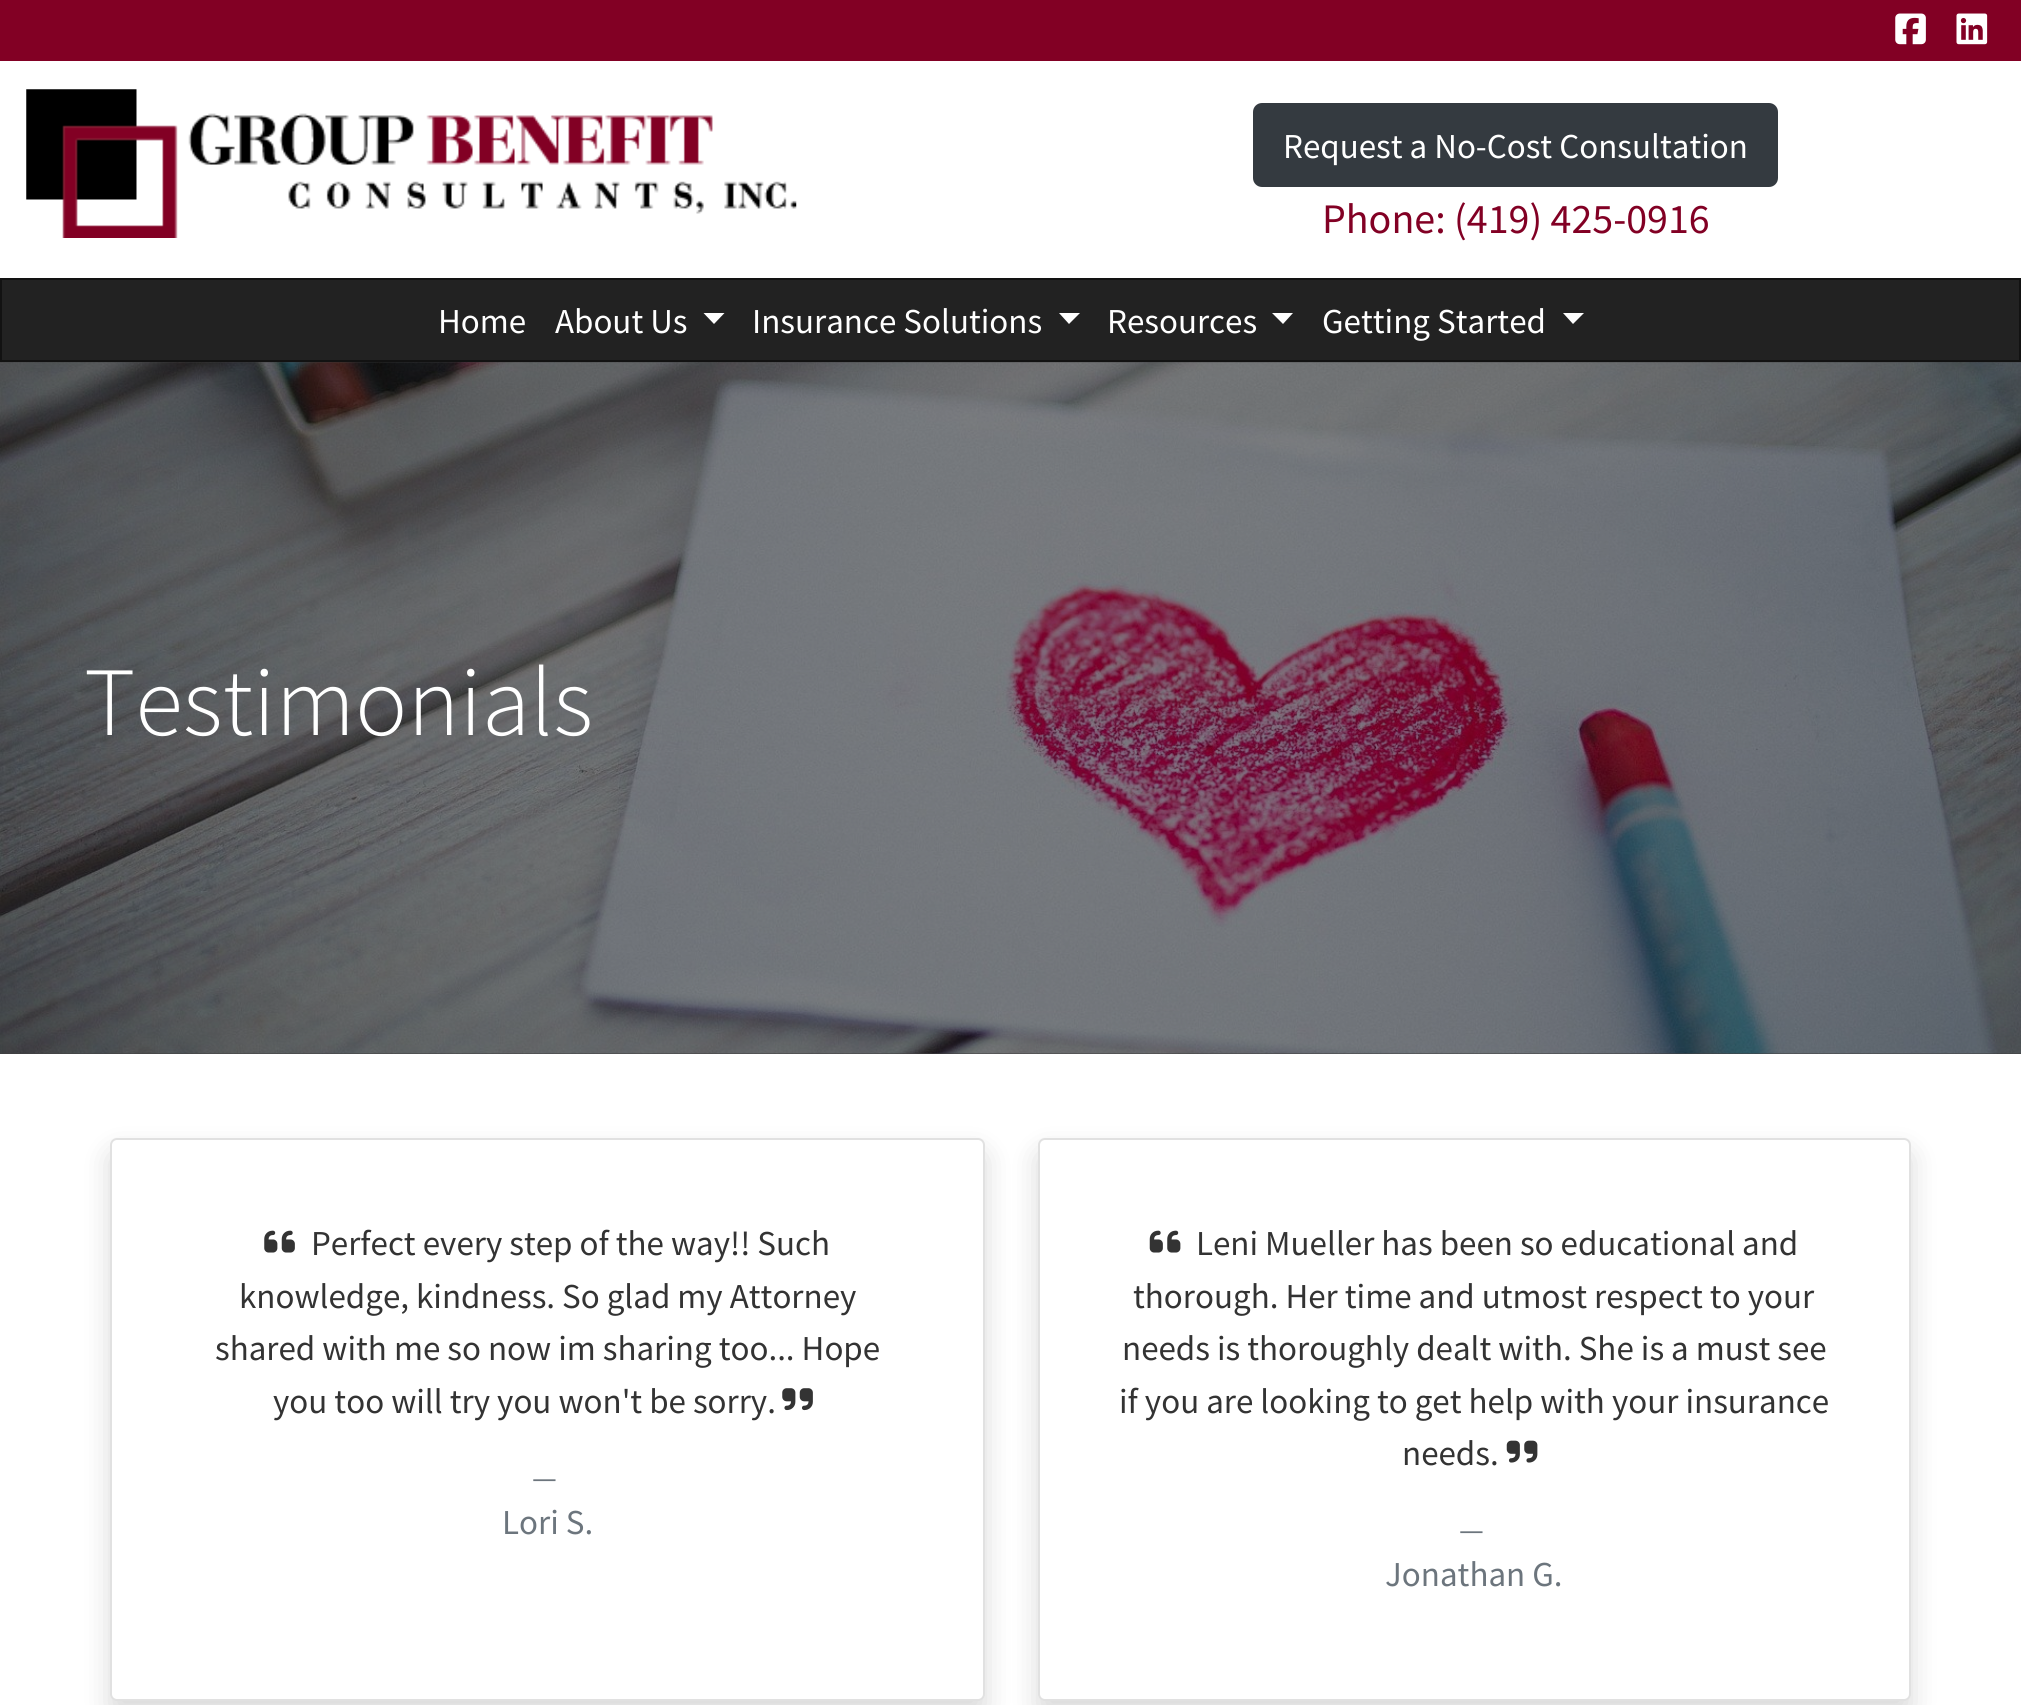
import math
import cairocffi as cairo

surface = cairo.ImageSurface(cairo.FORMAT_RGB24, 2021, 1705)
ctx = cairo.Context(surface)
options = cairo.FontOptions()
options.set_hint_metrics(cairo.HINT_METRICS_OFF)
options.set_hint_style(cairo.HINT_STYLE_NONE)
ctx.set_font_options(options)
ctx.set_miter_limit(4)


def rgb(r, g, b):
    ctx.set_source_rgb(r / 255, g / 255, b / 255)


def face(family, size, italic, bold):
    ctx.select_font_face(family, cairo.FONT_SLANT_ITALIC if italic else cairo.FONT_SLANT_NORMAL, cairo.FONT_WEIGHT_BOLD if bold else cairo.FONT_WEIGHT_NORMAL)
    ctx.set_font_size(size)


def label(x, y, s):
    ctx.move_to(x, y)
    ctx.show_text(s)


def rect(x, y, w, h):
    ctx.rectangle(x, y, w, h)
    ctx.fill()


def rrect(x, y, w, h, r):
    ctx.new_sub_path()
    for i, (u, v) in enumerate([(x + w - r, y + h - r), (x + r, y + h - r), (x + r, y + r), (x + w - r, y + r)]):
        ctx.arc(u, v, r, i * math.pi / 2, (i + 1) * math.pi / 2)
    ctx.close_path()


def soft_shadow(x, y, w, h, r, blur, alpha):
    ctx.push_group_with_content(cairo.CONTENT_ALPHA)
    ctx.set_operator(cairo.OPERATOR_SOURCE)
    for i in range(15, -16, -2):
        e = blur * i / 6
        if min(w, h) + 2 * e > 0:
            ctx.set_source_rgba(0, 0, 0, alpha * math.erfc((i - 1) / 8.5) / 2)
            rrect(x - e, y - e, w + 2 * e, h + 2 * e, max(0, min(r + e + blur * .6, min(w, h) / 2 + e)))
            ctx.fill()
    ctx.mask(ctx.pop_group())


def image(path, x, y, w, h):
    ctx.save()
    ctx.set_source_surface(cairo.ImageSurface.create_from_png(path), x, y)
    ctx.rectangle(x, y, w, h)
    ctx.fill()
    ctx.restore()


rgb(255, 255, 255)
ctx.paint()
rgb(130, 0, 36)
rect(0, 0, 2021, 61)
image('image0.png', 1895, 13, 31, 32)
image('image1.png', 1956, 13, 32, 32)
image('image2.png', 26, 89, 771, 149)
rgb(52, 58, 64)
rrect(1254, 104, 523, 82, 8)
ctx.fill_preserve()
ctx.stroke()
face('Source Sans Pro', 35, 0, 0)
rgb(255, 255, 255)
label(1283, 158, 'Request a No-Cost Consultation')
face('Source Sans Pro', 42, 0, 0)
rgb(130, 0, 36)
label(1322, 233, 'Phone: (419) 425-0916')
rgb(34, 34, 34)
ctx.rectangle(1, 279, 2019, 82)
ctx.fill_preserve()
rgb(18, 18, 18)
ctx.stroke()
face('Source Sans Pro', 35, 0, 0)
rgb(255, 255, 255)
label(438, 333, 'Home')
label(555, 333, 'About Us')
ctx.new_path()
ctx.move_to(703.5, 313)
ctx.line_to(724.5, 313)
ctx.line_to(714, 324)
ctx.close_path()
ctx.fill()
label(752, 333, 'Insurance Solutions')
ctx.new_path()
ctx.move_to(1059, 313)
ctx.line_to(1080, 313)
ctx.line_to(1069, 324)
ctx.close_path()
ctx.fill()
label(1107, 333, 'Resources')
ctx.new_path()
ctx.move_to(1272, 313)
ctx.line_to(1293, 313)
ctx.line_to(1283, 324)
ctx.close_path()
ctx.fill()
label(1322, 333, 'Getting Started')
ctx.new_path()
ctx.move_to(1563, 313)
ctx.line_to(1584, 313)
ctx.line_to(1573, 324)
ctx.close_path()
ctx.fill()
rgb(64, 64, 64)
rect(0, 362, 2021, 692)
image('image3.png', 0, 362, 2021, 692)
face('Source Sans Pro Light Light', 98, 0, 0)
rgb(255, 255, 255)
label(84, 735, 'Testimonials')
rgb(0, 0, 0)
soft_shadow(110, 1152, 875, 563, 7, 14, 0.15)
rgb(255, 255, 255)
rrect(110, 1138, 875, 563, 7)
ctx.fill()
rrect(111, 1139, 873, 561, 6)
ctx.set_source_rgba(0, 0, 0, 0.12)
ctx.stroke()
image('image4.png', 264, 1230, 31, 23)
face('Source Sans Pro', 35, 0, 0)
rgb(51, 51, 51)
label(311, 1255, 'Perfect every step of the way!! Such')
label(239, 1308, 'knowledge, kindness. So glad my Attorney')
label(215, 1360, 'shared with me so now im sharing too... Hope')
label(273, 1413, 'you too will try you won\'t be sorry.')
image('image5.png', 782, 1388, 31, 23)
face('Source Sans Pro', 31, 0, 0)
rgb(108, 117, 125)
label(532, 1488, '—')
face('Source Sans Pro', 35, 0, 0)
label(502, 1534, 'Lori S.')
rgb(0, 0, 0)
soft_shadow(1038, 1152, 873, 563, 7, 14, 0.15)
rgb(255, 255, 255)
rrect(1038, 1138, 873, 563, 7)
ctx.fill()
rrect(1039, 1139, 871, 561, 6)
ctx.set_source_rgba(0, 0, 0, 0.12)
ctx.stroke()
image('image6.png', 1149, 1230, 32, 23)
rgb(51, 51, 51)
label(1196, 1255, 'Leni Mueller has been so educational and')
label(1133, 1308, 'thorough. Her time and utmost respect to your')
label(1122, 1360, 'needs is thoroughly dealt with. She is a must see')
label(1119, 1413, 'if you are looking to get help with your insurance')
label(1402, 1465, 'needs.')
image('image7.png', 1506, 1440, 32, 23)
face('Source Sans Pro', 31, 0, 0)
rgb(108, 117, 125)
label(1459, 1540, '—')
face('Source Sans Pro', 35, 0, 0)
label(1385, 1586, 'Jonathan G.')
surface.write_to_png('render.png')
